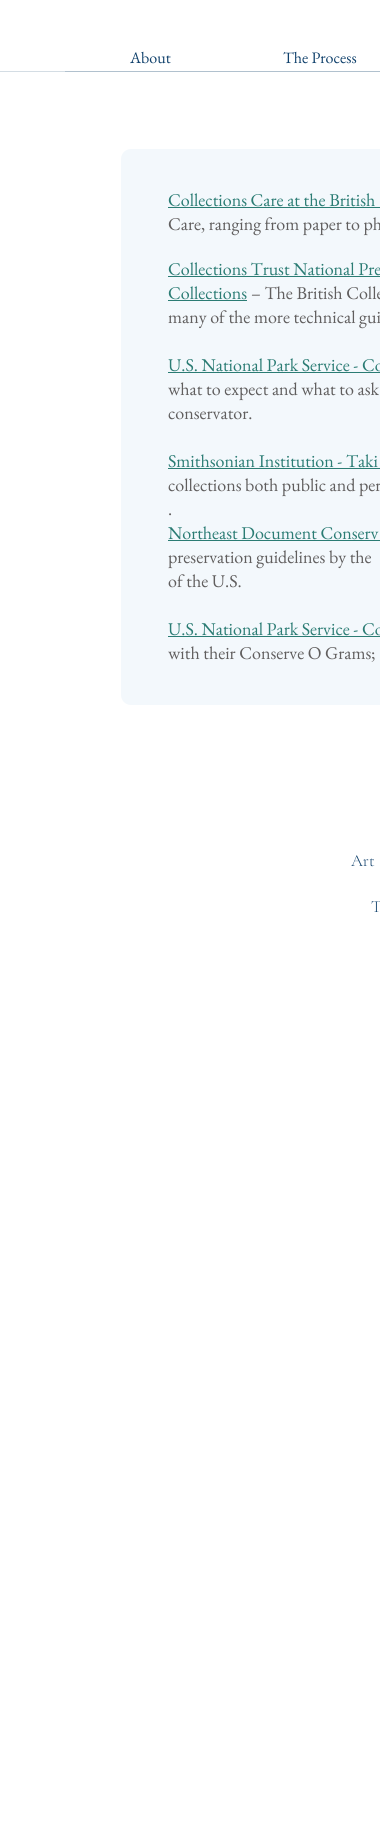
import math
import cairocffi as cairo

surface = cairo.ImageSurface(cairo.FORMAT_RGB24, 380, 1836)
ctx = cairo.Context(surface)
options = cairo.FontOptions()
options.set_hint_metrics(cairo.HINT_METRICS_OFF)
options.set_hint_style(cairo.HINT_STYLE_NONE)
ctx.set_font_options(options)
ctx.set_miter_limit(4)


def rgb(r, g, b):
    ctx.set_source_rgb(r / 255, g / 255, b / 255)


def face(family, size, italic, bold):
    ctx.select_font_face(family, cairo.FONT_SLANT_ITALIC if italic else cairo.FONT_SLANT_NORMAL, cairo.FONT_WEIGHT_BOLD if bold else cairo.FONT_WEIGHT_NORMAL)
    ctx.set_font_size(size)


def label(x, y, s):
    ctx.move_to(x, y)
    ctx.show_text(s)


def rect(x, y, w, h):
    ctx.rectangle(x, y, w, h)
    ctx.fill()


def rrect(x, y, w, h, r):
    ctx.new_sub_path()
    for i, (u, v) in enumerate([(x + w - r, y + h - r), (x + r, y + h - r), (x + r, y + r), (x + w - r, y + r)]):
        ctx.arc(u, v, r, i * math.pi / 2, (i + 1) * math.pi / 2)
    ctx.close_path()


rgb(255, 255, 255)
ctx.paint()
face('EB Garamond', 16, 0, 0)
rgb(15, 64, 107)
label(130, 63, 'About')
rgb(177, 193, 206)
rect(65, 71, 315, 1)
rgb(15, 64, 107)
label(283, 63, 'The Process')
rgb(212, 221, 228)
rect(0, 71, 65, 1)
rgb(243, 248, 252)
rrect(121, 149, 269, 556, 10)
ctx.fill()
face('EB Garamond', 18, 0, 0)
rgb(43, 124, 116)
label(168, 206, 'Collections Care at the British')
rect(168, 207, 212, 1)
rgb(96, 94, 94)
label(168, 230, 'Care, ranging from paper to ph')
rgb(43, 124, 116)
label(168, 275, 'Collections Trust National Pre')
rect(168, 276, 212, 1)
label(168, 299, 'Collections')
rect(168, 300, 79, 1)
rgb(96, 94, 94)
label(251, 299, '– The British Colle')
label(168, 323, 'many of the more technical gui')
rgb(43, 124, 116)
label(168, 371, 'U.S. National Park Service - Co')
rect(168, 372, 212, 1)
rgb(96, 94, 94)
label(168, 395, 'what to expect and what to ask')
label(168, 419, 'conservator.')
rgb(43, 124, 116)
label(168, 467, 'Smithsonian Institution - Taki')
rect(168, 468, 212, 1)
rgb(96, 94, 94)
label(168, 491, 'collections both public and per')
label(168, 515, '.')
rgb(43, 124, 116)
label(168, 539, 'Northeast Document Conserv')
rect(168, 540, 212, 1)
rgb(96, 94, 94)
label(168, 563, 'preservation guidelines by the')
label(168, 587, 'of the U.S.')
rgb(43, 124, 116)
label(168, 635, 'U.S. National Park Service - Co')
rect(168, 636, 212, 1)
rgb(96, 94, 94)
label(168, 659, 'with their Conserve O Grams;')
face('Cormorant Garamond Light', 17, 0, 0)
rgb(15, 64, 107)
label(351, 866, 'Art')
label(371, 912, 'T')
surface.write_to_png('render.png')
